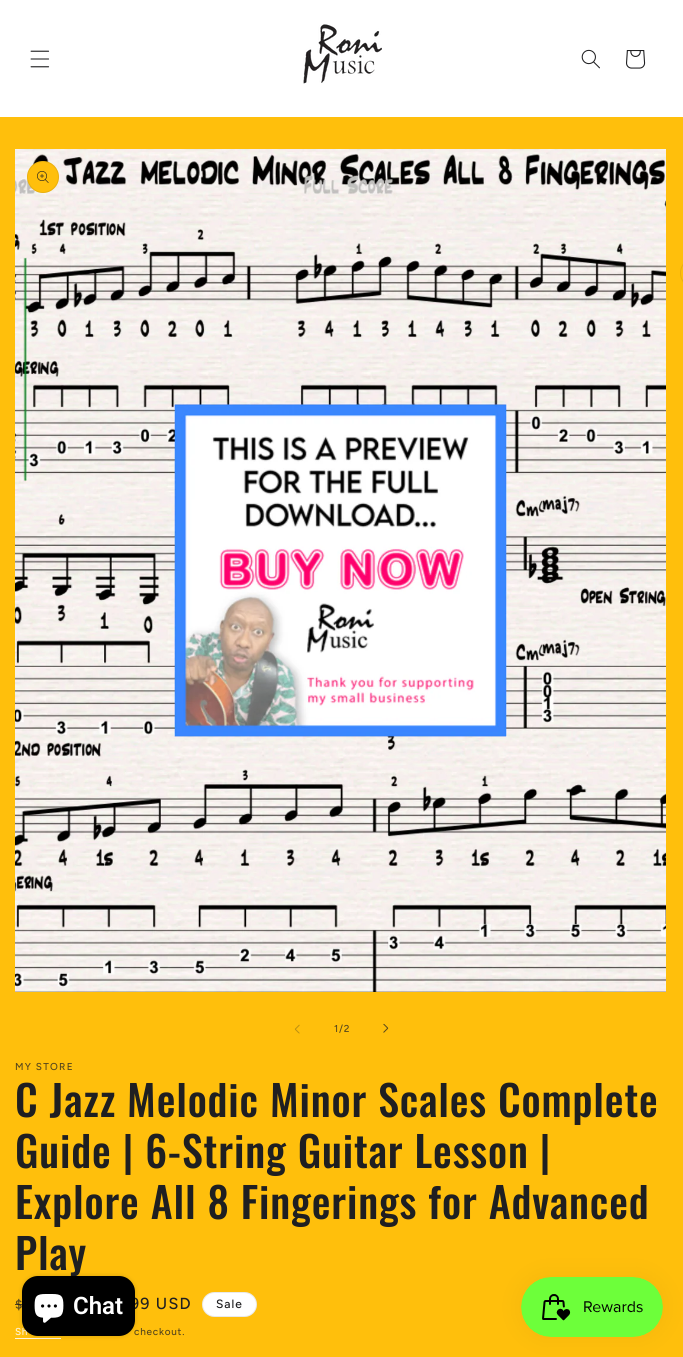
import math
import cairocffi as cairo

surface = cairo.ImageSurface(cairo.FORMAT_RGB24, 683, 1357)
ctx = cairo.Context(surface)
options = cairo.FontOptions()
options.set_hint_metrics(cairo.HINT_METRICS_OFF)
options.set_hint_style(cairo.HINT_STYLE_NONE)
ctx.set_font_options(options)
ctx.set_miter_limit(4)


def rgb(r, g, b):
    ctx.set_source_rgb(r / 255, g / 255, b / 255)


def face(family, size, italic, bold):
    ctx.select_font_face(family, cairo.FONT_SLANT_ITALIC if italic else cairo.FONT_SLANT_NORMAL, cairo.FONT_WEIGHT_BOLD if bold else cairo.FONT_WEIGHT_NORMAL)
    ctx.set_font_size(size)


def label(x, y, s):
    ctx.move_to(x, y)
    ctx.show_text(s)


def tracked(x, y, s, letter, word):
    ctx.move_to(x, y)
    for ch in s:
        ctx.show_text(ch)
        ctx.rel_move_to(letter + word * (ch == ' '), 0)


def rect(x, y, w, h):
    ctx.rectangle(x, y, w, h)
    ctx.fill()


def rrect(x, y, w, h, r):
    ctx.new_sub_path()
    for i, (u, v) in enumerate([(x + w - r, y + h - r), (x + r, y + h - r), (x + r, y + r), (x + w - r, y + r)]):
        ctx.arc(u, v, r, i * math.pi / 2, (i + 1) * math.pi / 2)
    ctx.close_path()


def soft_shadow(x, y, w, h, r, blur, alpha):
    ctx.push_group_with_content(cairo.CONTENT_ALPHA)
    ctx.set_operator(cairo.OPERATOR_SOURCE)
    for i in range(15, -16, -2):
        e = blur * i / 6
        if min(w, h) + 2 * e > 0:
            ctx.set_source_rgba(0, 0, 0, alpha * math.erfc((i - 1) / 8.5) / 2)
            rrect(x - e, y - e, w + 2 * e, h + 2 * e, max(0, min(r + e + blur * .6, min(w, h) / 2 + e)))
            ctx.fill()
    ctx.mask(ctx.pop_group())


def image(path, x, y, w, h):
    ctx.save()
    ctx.set_source_surface(cairo.ImageSurface.create_from_png(path), x, y)
    ctx.rectangle(x, y, w, h)
    ctx.fill()
    ctx.restore()


rgb(255, 191, 12)
ctx.paint()
rgb(255, 255, 255)
rect(0, 0, 683, 117)
image('image0.png', 30, 50, 20, 18)
image('image1.png', 303, 24, 79, 60)
image('image2.png', 581, 49, 19, 20)
image('image3.png', 626, 50, 20, 19)
image('image4.png', 15, 149, 651, 843)
rgb(255, 191, 12)
ctx.arc(43, 177, 16, 0, 2 * math.pi)
ctx.fill()
ctx.arc(43, 177, 15.5, 0, 2 * math.pi)
ctx.set_source_rgba(0.122, 0.122, 0.129, 0.1)
ctx.set_line_width(1)
ctx.stroke()
image('image5.png', 37, 171, 12, 12)
rrect(680.5, 257.5, 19, 31, 15.5)
rgb(233, 175, 14)
ctx.stroke()
image('image6.png', 294, 1024, 6, 10)
face('Figtree Medium', 10, 0, 0)
rgb(87, 71, 28)
tracked(334, 1032, '1/2', 0.75, 0)
image('image7.png', 383, 1023, 6, 10)
tracked(15, 1070, 'MY STORE', 1.25, 0)
face('Oswald Medium', 42, 0, 0)
rgb(31, 31, 33)
tracked(15, 1117, 'C Jazz Melodic Minor Scales Complete', 0.85, 0)
tracked(15, 1168, 'Guide | 6-String Guitar Lesson |', 0.85, 0)
tracked(15, 1219, 'Explore All 8 Fingerings for Advanced', 0.85, 0)
tracked(15, 1270, 'Play', 0.85, 0)
face('Figtree Medium', 13, 0, 0)
rgb(87, 71, 28)
tracked(15, 1309, '$', 1.25, 0)
ctx.set_source_rgba(0.122, 0.122, 0.129, 0.75)
rect(15, 1304, 7, 1)
face('Figtree Medium', 16, 0, 0)
rgb(31, 31, 33)
tracked(130, 1309, '99 USD', 1.25, 0)
rgb(255, 255, 255)
rrect(202, 1292, 55, 25, 12.5)
ctx.fill()
rrect(202.5, 1292.5, 54, 24, 12)
ctx.set_source_rgba(0.122, 0.122, 0.129, 0.1)
ctx.stroke()
face('Figtree Medium', 12, 0, 0)
rgb(31, 31, 33)
tracked(216, 1308, 'Sale', 1, 0)
face('Figtree Medium', 10, 0, 0)
rgb(255, 245, 219)
tracked(15, 1335, 'Sh', 0.75, 0)
rect(15, 1338, 46, 1)
rgb(87, 71, 28)
tracked(134, 1335, 'checkout.', 0.75, 0)
rgb(0, 0, 0)
soft_shadow(22, 1276, 113, 60, 16, 2.5, 0.15)
rgb(0, 0, 0)
rrect(22, 1276, 113, 60, 16)
ctx.fill()
image('image8.png', 34, 1294, 30, 29)
face('Roboto SemiBold', 24, 0, 0)
rgb(255, 255, 255)
label(73, 1314, 'Chat')
rgb(0, 0, 0)
soft_shadow(521, 1277, 142, 60, 30, 12.5, 0.05)
image('image9.png', 521, 1277, 142, 60)
surface.write_to_png('render.png')
